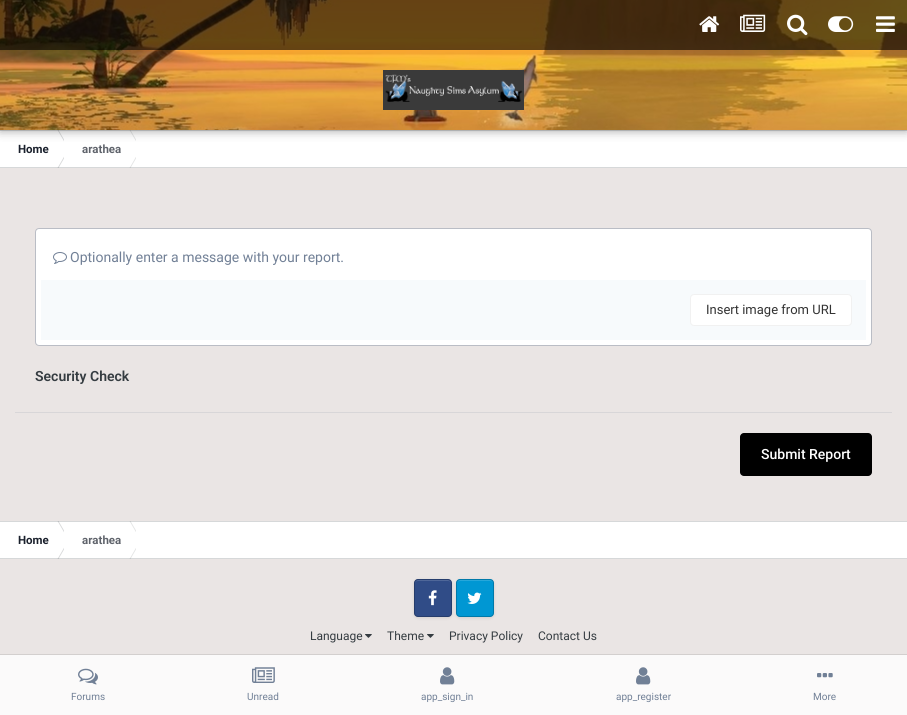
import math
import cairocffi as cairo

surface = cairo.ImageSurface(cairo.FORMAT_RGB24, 907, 715)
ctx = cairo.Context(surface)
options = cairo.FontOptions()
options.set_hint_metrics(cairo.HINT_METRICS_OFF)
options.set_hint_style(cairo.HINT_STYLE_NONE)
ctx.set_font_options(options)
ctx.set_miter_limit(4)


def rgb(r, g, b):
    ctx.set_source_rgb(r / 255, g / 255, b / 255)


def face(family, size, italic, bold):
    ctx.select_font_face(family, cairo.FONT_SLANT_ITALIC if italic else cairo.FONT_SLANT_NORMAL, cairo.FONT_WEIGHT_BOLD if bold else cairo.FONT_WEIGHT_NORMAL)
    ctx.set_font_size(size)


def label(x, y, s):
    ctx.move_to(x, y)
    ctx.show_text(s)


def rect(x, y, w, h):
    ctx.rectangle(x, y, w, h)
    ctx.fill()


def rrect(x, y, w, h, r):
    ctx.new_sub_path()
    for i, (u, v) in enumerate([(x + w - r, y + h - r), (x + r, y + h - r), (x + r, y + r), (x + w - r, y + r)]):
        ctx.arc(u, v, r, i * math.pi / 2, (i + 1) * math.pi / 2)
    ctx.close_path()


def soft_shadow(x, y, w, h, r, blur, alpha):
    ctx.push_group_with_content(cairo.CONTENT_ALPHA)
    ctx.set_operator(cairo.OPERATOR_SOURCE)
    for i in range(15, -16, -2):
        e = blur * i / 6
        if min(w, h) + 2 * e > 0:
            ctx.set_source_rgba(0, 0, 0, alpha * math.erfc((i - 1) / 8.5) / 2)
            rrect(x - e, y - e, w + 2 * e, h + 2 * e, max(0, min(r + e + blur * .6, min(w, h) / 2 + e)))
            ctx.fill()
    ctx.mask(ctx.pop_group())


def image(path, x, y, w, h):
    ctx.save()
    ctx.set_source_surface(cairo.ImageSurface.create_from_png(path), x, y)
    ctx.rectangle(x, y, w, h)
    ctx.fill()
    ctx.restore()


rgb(234, 229, 228)
ctx.paint()
rgb(255, 255, 255)
rect(0, 130, 907, 38)
ctx.save()
ctx.rectangle(0, 130, 64, 38)
ctx.clip()
rgb(215, 216, 217)
ctx.new_path()
ctx.move_to(57.5, 130)
ctx.line_to(58.5, 130)
ctx.line_to(69.5, 149)
ctx.line_to(68.5, 149)
ctx.close_path()
ctx.move_to(57.5, 168)
ctx.line_to(58.5, 168)
ctx.line_to(69.5, 149)
ctx.line_to(68.5, 149)
ctx.close_path()
ctx.fill()
ctx.restore()
ctx.save()
ctx.rectangle(64, 130, 72, 38)
ctx.clip()
rgb(227, 228, 228)
ctx.new_path()
ctx.move_to(129.5, 130)
ctx.line_to(130.5, 130)
ctx.line_to(141.5, 149)
ctx.line_to(140.5, 149)
ctx.close_path()
ctx.move_to(129.5, 168)
ctx.line_to(130.5, 168)
ctx.line_to(141.5, 149)
ctx.line_to(140.5, 149)
ctx.close_path()
ctx.fill()
ctx.restore()
ctx.set_source_rgba(0.208, 0.235, 0.255, 0.2)
rect(0, 130, 907, 1)
rgb(0, 0, 0)
soft_shadow(0, 1, 907, 130, 0, 5, 0.35)
image('image0.png', 0, 0, 907, 130)
ctx.set_source_rgba(0, 0, 0, 0.6)
rect(0, 0, 907, 50)
image('image1.png', 699, 16, 21, 16)
image('image2.png', 740, 14, 26, 18)
image('image3.png', 787, 14, 21, 22)
image('image4.png', 828, 16, 26, 16)
image('image5.png', 876, 16, 19, 16)
image('image6.png', 383, 70, 141, 40)
ctx.set_source_rgba(0.208, 0.235, 0.255, 0.2)
rect(0, 167, 907, 1)
face('Roboto', 11.5, 0, 1)
rgb(26, 32, 44)
label(18, 153, 'Home')
rgb(95, 99, 107)
label(82, 153, 'arathea')
rgb(255, 255, 255)
rrect(35.5, 228.5, 836, 117, 3.5)
ctx.fill_preserve()
rgb(186, 189, 197)
ctx.set_line_width(1)
ctx.stroke()
image('image7.png', 53, 252, 14, 12)
face('Roboto', 14, 0, 0)
rgb(113, 128, 150)
label(70, 262, 'Optionally enter a message with your report.')
rgb(247, 250, 252)
rect(41, 280, 825, 60)
rgb(255, 255, 255)
rrect(690, 294, 162, 32, 4)
ctx.fill()
rrect(690.5, 294.5, 161, 31, 3.5)
ctx.set_source_rgba(0.2, 0.2, 0.2, 0.07)
ctx.stroke()
face('Roboto', 13, 0, 0)
rgb(51, 51, 51)
label(706, 314, 'Insert image from URL')
face('Roboto SemiBold', 14, 0, 0)
rgb(53, 60, 65)
label(35, 381, 'Security Check')
rgb(216, 214, 216)
rect(15, 412, 877, 1)
rgb(0, 0, 0)
rrect(740, 433, 132, 43, 4)
ctx.fill()
face('Roboto Medium', 14, 0, 0)
rgb(255, 255, 255)
label(761, 459, 'Submit Report')
rect(0, 521, 907, 38)
ctx.save()
ctx.rectangle(0, 521, 64, 38)
ctx.clip()
rgb(215, 216, 217)
ctx.new_path()
ctx.move_to(57.5, 521)
ctx.line_to(58.5, 521)
ctx.line_to(69.5, 540)
ctx.line_to(68.5, 540)
ctx.close_path()
ctx.move_to(57.5, 559)
ctx.line_to(58.5, 559)
ctx.line_to(69.5, 540)
ctx.line_to(68.5, 540)
ctx.close_path()
ctx.fill()
ctx.restore()
ctx.save()
ctx.rectangle(64, 521, 72, 38)
ctx.clip()
rgb(227, 228, 228)
ctx.new_path()
ctx.move_to(129.5, 521)
ctx.line_to(130.5, 521)
ctx.line_to(141.5, 540)
ctx.line_to(140.5, 540)
ctx.close_path()
ctx.move_to(129.5, 559)
ctx.line_to(130.5, 559)
ctx.line_to(141.5, 540)
ctx.line_to(140.5, 540)
ctx.close_path()
ctx.fill()
ctx.restore()
ctx.set_source_rgba(0.208, 0.235, 0.255, 0.2)
rect(0, 521, 907, 1)
rect(0, 558, 907, 1)
face('Roboto', 11.5, 0, 1)
rgb(26, 32, 44)
label(18, 544, 'Home')
rgb(95, 99, 107)
label(82, 544, 'arathea')
rgb(0, 0, 0)
soft_shadow(414, 580, 38, 38, 4, 1.5, 0.1)
rgb(48, 76, 135)
rrect(414, 579, 38, 38, 4)
ctx.fill()
rgb(79, 103, 153)
ctx.new_path()
ctx.move_to(418, 581)
ctx.curve_to(416, 581, 415, 582, 415, 584)
ctx.curve_to(415, 579, 419, 580, 423, 580)
ctx.line_to(443, 580)
ctx.curve_to(447, 580, 451, 579, 451, 584)
ctx.curve_to(451, 582, 450, 581, 448, 581)
ctx.close_path()
ctx.fill()
image('image8.png', 428, 590, 9, 16)
rrect(414.5, 579.5, 37, 37, 3.5)
ctx.set_source_rgba(0, 0, 0, 0.2)
ctx.stroke()
rgb(0, 0, 0)
soft_shadow(456, 580, 38, 38, 4, 1.5, 0.1)
rgb(0, 151, 211)
rrect(456, 579, 38, 38, 4)
ctx.fill()
rgb(38, 167, 218)
ctx.new_path()
ctx.move_to(460, 581)
ctx.curve_to(458, 581, 457, 582, 457, 584)
ctx.curve_to(457, 579, 461, 580, 465, 580)
ctx.line_to(485, 580)
ctx.curve_to(489, 580, 493, 579, 493, 584)
ctx.curve_to(493, 582, 492, 581, 490, 581)
ctx.close_path()
ctx.fill()
image('image9.png', 467, 592, 15, 12)
rrect(456.5, 579.5, 37, 37, 3.5)
ctx.set_source_rgba(0, 0, 0, 0.2)
ctx.stroke()
face('Roboto', 12, 0, 0)
rgb(53, 60, 65)
label(310, 640, 'Language')
image('image10.png', 365, 634, 7, 4)
label(387, 640, 'Theme')
image('image10.png', 427, 634, 7, 4)
label(449, 640, 'Privacy Policy')
label(538, 640, 'Contact Us')
ctx.set_source_rgba(0, 0, 0, 0.1)
rect(0, 654, 907, 1)
ctx.set_source_rgba(1, 1, 1, 0.8)
rect(0, 655, 907, 60)
image('image11.png', 78, 668, 20, 17)
face('Roboto', 10, 0, 0)
rgb(113, 128, 150)
label(71, 700, 'Forums')
image('image12.png', 252, 667, 23, 16)
label(247, 700, 'Unread')
image('image13.png', 440, 667, 15, 18)
label(421, 700, 'app_sign_in')
image('image13.png', 636, 667, 15, 18)
label(616, 700, 'app_register')
image('image14.png', 817, 673, 16, 5)
label(813, 700, 'More')
surface.write_to_png('render.png')
